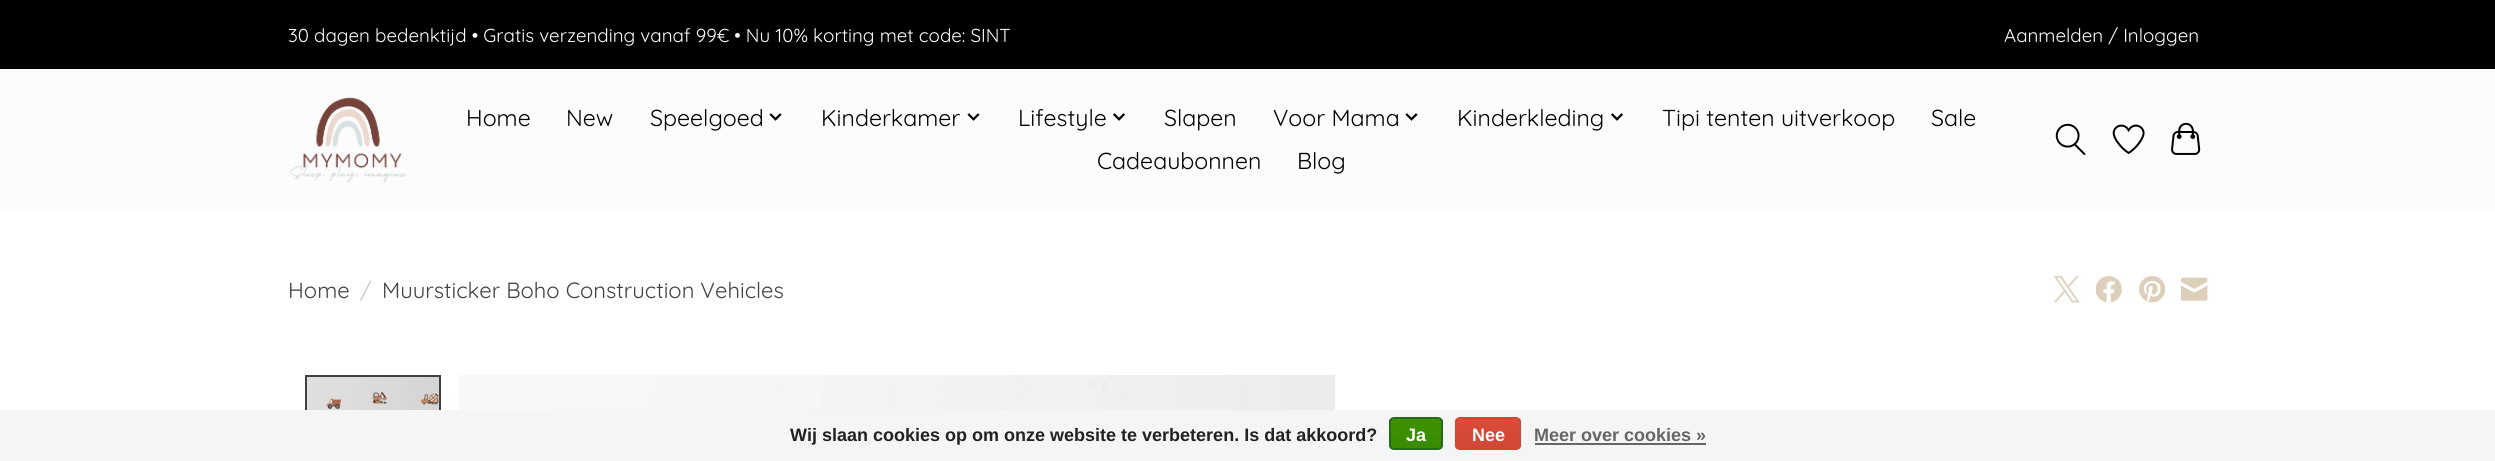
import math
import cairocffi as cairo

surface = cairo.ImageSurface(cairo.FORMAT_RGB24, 2495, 461)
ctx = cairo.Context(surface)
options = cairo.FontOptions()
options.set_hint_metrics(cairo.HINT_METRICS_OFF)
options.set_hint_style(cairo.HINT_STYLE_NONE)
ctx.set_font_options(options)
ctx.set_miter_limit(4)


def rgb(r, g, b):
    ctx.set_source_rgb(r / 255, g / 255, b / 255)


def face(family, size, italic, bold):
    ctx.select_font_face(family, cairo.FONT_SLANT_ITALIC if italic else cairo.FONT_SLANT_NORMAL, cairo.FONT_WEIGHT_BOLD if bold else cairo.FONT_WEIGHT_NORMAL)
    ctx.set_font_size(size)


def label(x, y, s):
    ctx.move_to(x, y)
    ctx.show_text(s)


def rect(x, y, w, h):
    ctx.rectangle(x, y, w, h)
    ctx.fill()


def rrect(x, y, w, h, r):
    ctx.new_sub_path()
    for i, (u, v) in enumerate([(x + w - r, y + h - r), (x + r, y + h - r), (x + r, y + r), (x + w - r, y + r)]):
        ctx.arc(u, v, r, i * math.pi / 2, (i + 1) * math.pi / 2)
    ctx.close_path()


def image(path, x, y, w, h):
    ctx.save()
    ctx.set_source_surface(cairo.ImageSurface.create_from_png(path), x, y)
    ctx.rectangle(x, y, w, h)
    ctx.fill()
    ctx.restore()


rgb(255, 255, 255)
ctx.paint()
rgb(252, 252, 252)
rect(0, 69, 2495, 141)
rgb(0, 0, 0)
rect(0, 0, 2495, 69)
face('Quicksand', 18.75, 0, 0)
rgb(255, 255, 255)
label(288, 42, '30 dagen bedenktijd • Gratis verzending vanaf 99€ • Nu 10% korting met code: SINT')
label(2004, 42, 'Aanmelden / Inloggen')
image('image0.png', 290, 97, 117, 86)
face('Quicksand', 23.1, 0, 0)
rgb(0, 0, 0)
label(466, 126, 'Home')
label(566, 126, 'New')
label(650, 126, 'Speelgoed')
image('image1.png', 769, 113, 13, 8)
label(821, 126, 'Kinderkamer')
image('image1.png', 967, 113, 13, 8)
label(1018, 126, 'Lifestyle')
image('image2.png', 1113, 113, 12, 8)
label(1164, 126, 'Slapen')
label(1273, 126, 'Voor Mama')
image('image1.png', 1405, 113, 13, 8)
label(1457, 126, 'Kinderkleding')
image('image2.png', 1611, 113, 12, 8)
label(1662, 126, 'Tipi tenten uitverkoop')
label(1931, 126, 'Sale')
label(1097, 169, 'Cadeaubonnen')
label(1297, 169, 'Blog')
image('image3.png', 2055, 123, 31, 33)
image('image4.png', 2112, 124, 33, 30)
image('image5.png', 2171, 123, 30, 32)
face('Quicksand', 22, 0, 0)
rgb(65, 65, 65)
label(288, 298, 'Home')
rgb(198, 198, 198)
label(360, 298, '/')
rgb(65, 65, 65)
label(382, 298, 'Muursticker Boho Construction Vehicles')
image('image6.png', 2054, 276, 25, 27)
image('image7.png', 2096, 276, 26, 27)
image('image8.png', 2139, 276, 26, 27)
image('image9.png', 2181, 277, 27, 24)
image('image10.png', 307, 377, 132, 33)
ctx.rectangle(306, 376, 134, 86)
ctx.stroke()
image('image11.png', 458, 375, 877, 35)
rgb(245, 245, 245)
rect(0, 410, 2495, 51)
face('Liberation Sans', 18, 0, 1)
rgb(34, 34, 34)
label(790, 441, 'Wij slaan cookies op om onze website te verbeteren. Is dat akkoord?')
ctx.save()
rrect(1389, 417, 54, 33, 5)
ctx.clip()
gradient = cairo.LinearGradient(1416, 419, 1416, 449)
gradient.add_color_stop_rgba(0, 0.235, 0.576, 0, 1)
gradient.add_color_stop_rgba(1, 0.224, 0.541, 0, 1)
ctx.set_source(gradient)
rect(1389, 419, 54, 30)
ctx.restore()
rrect(1390, 418, 52, 31, 4)
rgb(41, 105, 29)
ctx.stroke()
rgb(255, 255, 255)
label(1406, 441, 'Ja')
ctx.save()
rrect(1455, 417, 66, 33, 5)
ctx.clip()
gradient = cairo.LinearGradient(1488, 419, 1488, 449)
gradient.add_color_stop_rgba(0, 0.863, 0.29, 0.22, 1)
gradient.add_color_stop_rgba(1, 0.82, 0.282, 0.212, 1)
ctx.set_source(gradient)
rect(1455, 419, 66, 30)
ctx.restore()
rrect(1456, 418, 64, 31, 4)
rgb(209, 72, 54)
ctx.stroke()
rgb(255, 255, 255)
label(1472, 441, 'Nee')
rgb(102, 102, 102)
label(1534, 441, 'Meer over cookies »')
rect(1535, 443, 171, 2)
surface.write_to_png('render.png')
